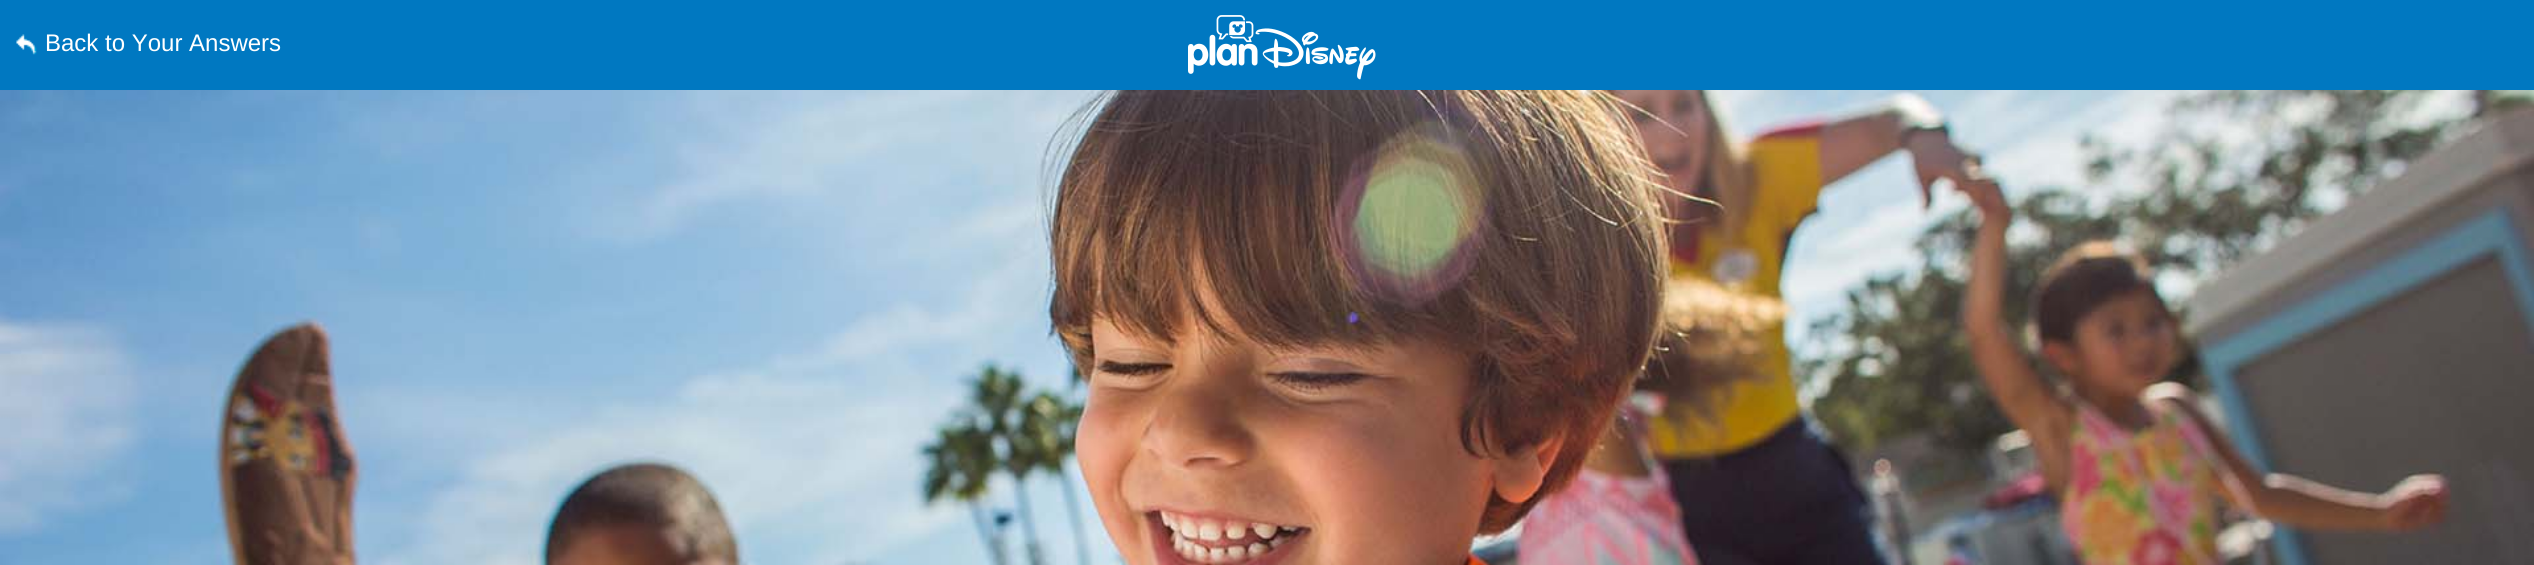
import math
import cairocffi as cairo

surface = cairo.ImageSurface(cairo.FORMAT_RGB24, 2534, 565)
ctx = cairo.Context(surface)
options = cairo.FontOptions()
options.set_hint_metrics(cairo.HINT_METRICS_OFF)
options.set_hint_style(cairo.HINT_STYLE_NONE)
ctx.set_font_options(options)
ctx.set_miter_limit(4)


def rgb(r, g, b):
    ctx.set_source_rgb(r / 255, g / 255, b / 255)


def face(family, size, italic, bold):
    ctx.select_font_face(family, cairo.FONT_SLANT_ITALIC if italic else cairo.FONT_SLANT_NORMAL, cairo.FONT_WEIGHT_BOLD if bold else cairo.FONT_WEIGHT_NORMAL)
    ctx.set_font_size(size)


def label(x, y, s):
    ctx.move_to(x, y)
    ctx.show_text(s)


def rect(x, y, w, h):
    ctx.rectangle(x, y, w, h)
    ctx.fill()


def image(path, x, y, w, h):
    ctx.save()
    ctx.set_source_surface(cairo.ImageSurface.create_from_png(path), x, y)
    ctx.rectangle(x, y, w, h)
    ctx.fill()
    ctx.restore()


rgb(255, 255, 255)
ctx.paint()
rgb(0, 120, 193)
rect(0, 0, 2534, 90)
image('image0.png', 16, 34, 21, 21)
face('Liberation Sans', 24, 0, 0)
rgb(255, 255, 255)
label(45, 51, 'Back to Your Answers')
image('image1.png', 1188, 15, 188, 65)
image('image2.png', 0, 90, 2534, 475)
surface.write_to_png('render.png')
